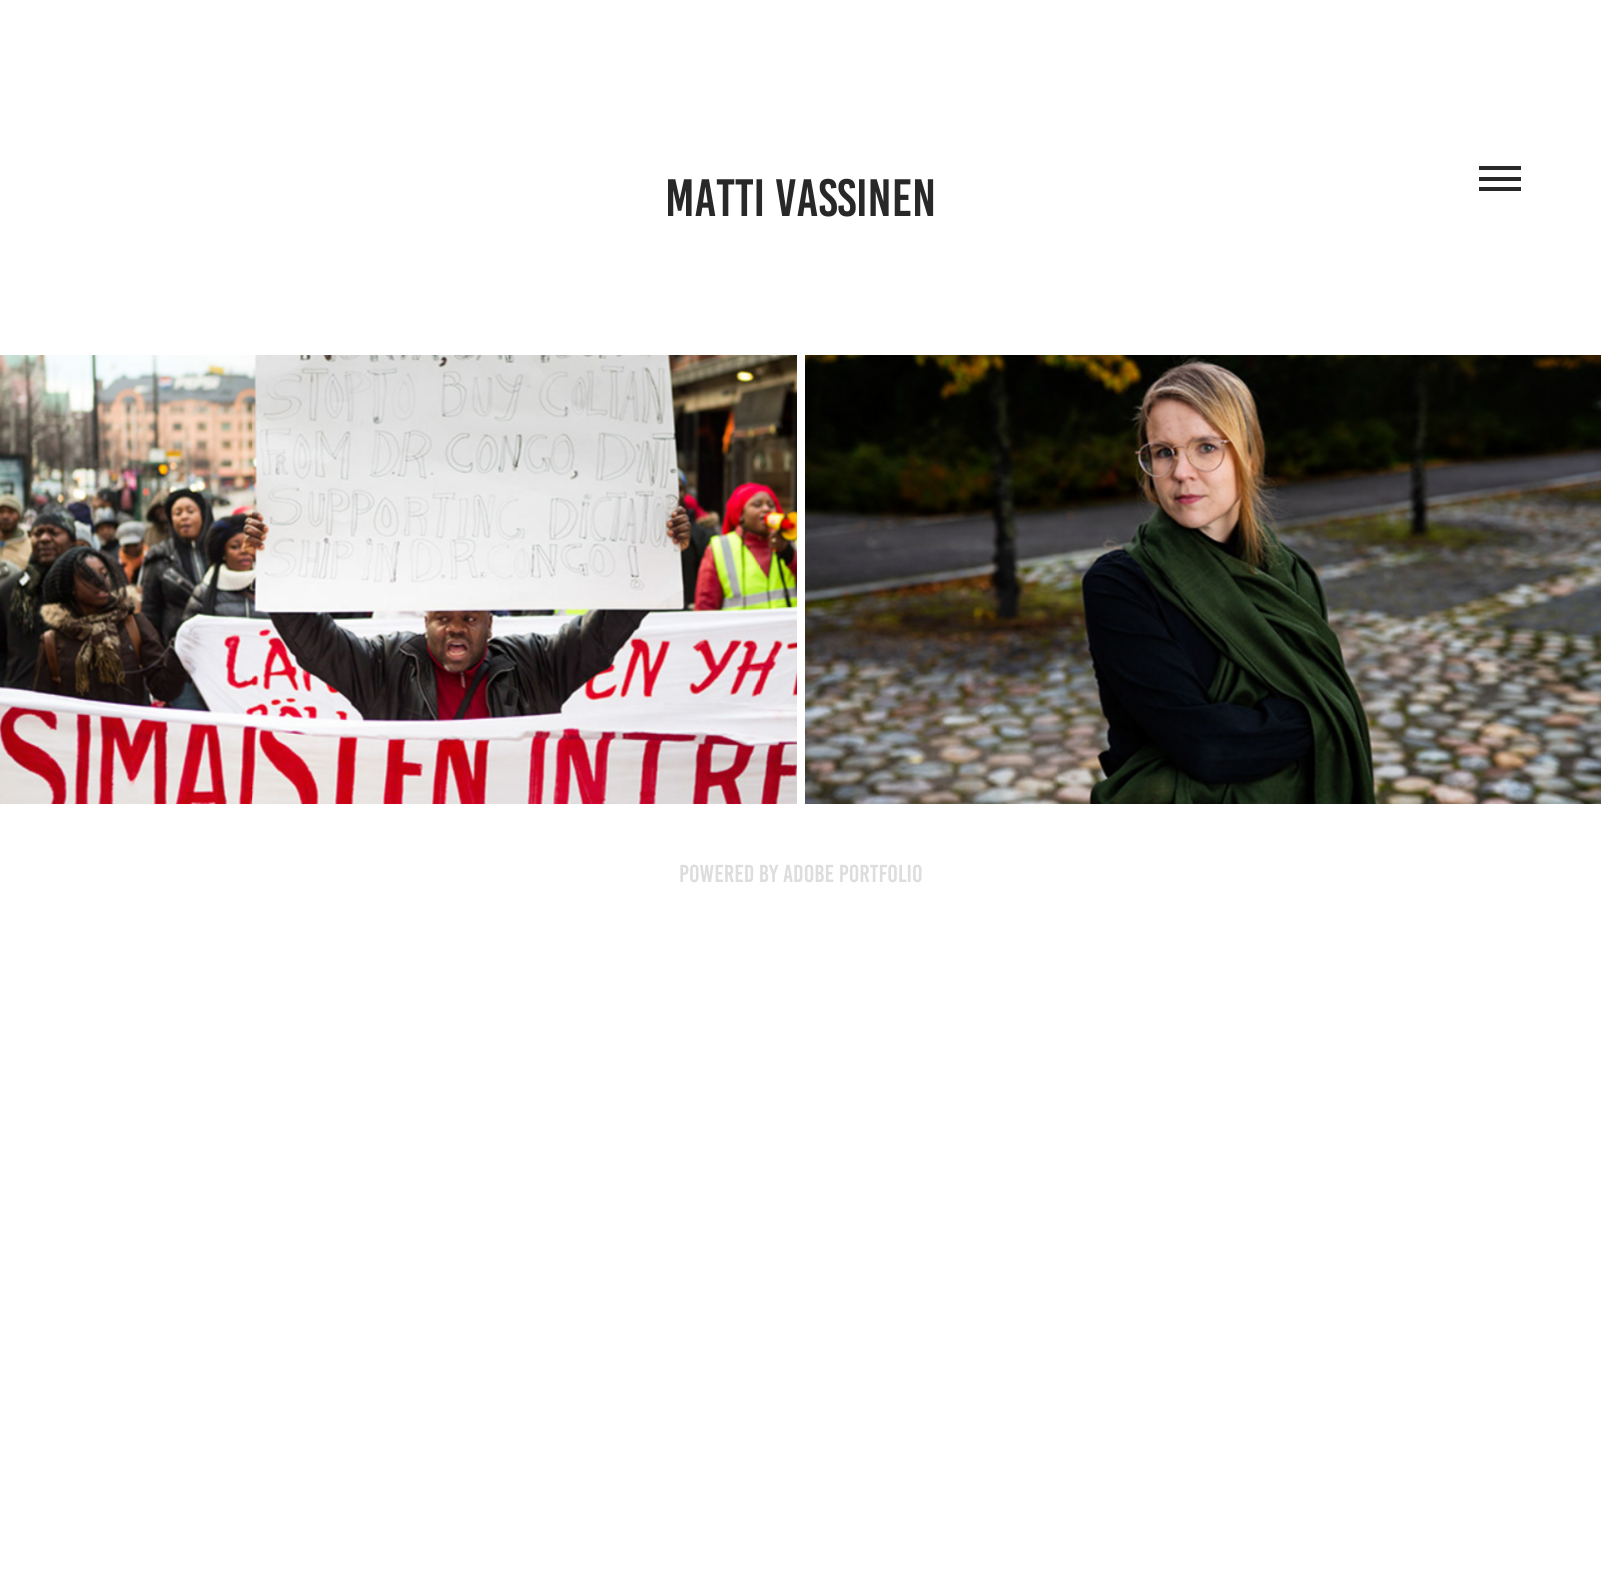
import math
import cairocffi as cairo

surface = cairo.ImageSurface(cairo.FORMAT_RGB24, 1601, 1583)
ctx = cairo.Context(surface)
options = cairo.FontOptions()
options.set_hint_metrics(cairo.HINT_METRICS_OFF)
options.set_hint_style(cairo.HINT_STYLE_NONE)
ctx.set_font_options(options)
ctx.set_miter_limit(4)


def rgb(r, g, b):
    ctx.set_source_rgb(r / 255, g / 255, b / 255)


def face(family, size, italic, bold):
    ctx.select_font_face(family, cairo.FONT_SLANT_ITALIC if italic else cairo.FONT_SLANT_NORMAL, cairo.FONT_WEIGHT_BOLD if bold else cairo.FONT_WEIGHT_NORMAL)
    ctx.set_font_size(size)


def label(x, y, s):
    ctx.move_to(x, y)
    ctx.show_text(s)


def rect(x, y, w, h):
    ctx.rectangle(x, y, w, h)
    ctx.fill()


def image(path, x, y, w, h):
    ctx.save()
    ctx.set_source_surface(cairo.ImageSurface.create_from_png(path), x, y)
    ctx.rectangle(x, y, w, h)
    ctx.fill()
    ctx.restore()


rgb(255, 255, 255)
ctx.paint()
face('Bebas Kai', 52.5, 0, 0)
rgb(40, 40, 40)
label(665, 216, 'MATTI VASSINEN')
rect(1479, 166, 42, 4)
rect(1479, 177, 42, 4)
rect(1479, 187, 42, 4)
image('image0.png', 0, 355, 797, 449)
image('image1.png', 805, 355, 796, 449)
face('Bebas Kai', 24.5, 0, 0)
rgb(221, 221, 221)
label(679, 882, 'Powered by Adobe Portfolio')
surface.write_to_png('render.png')
